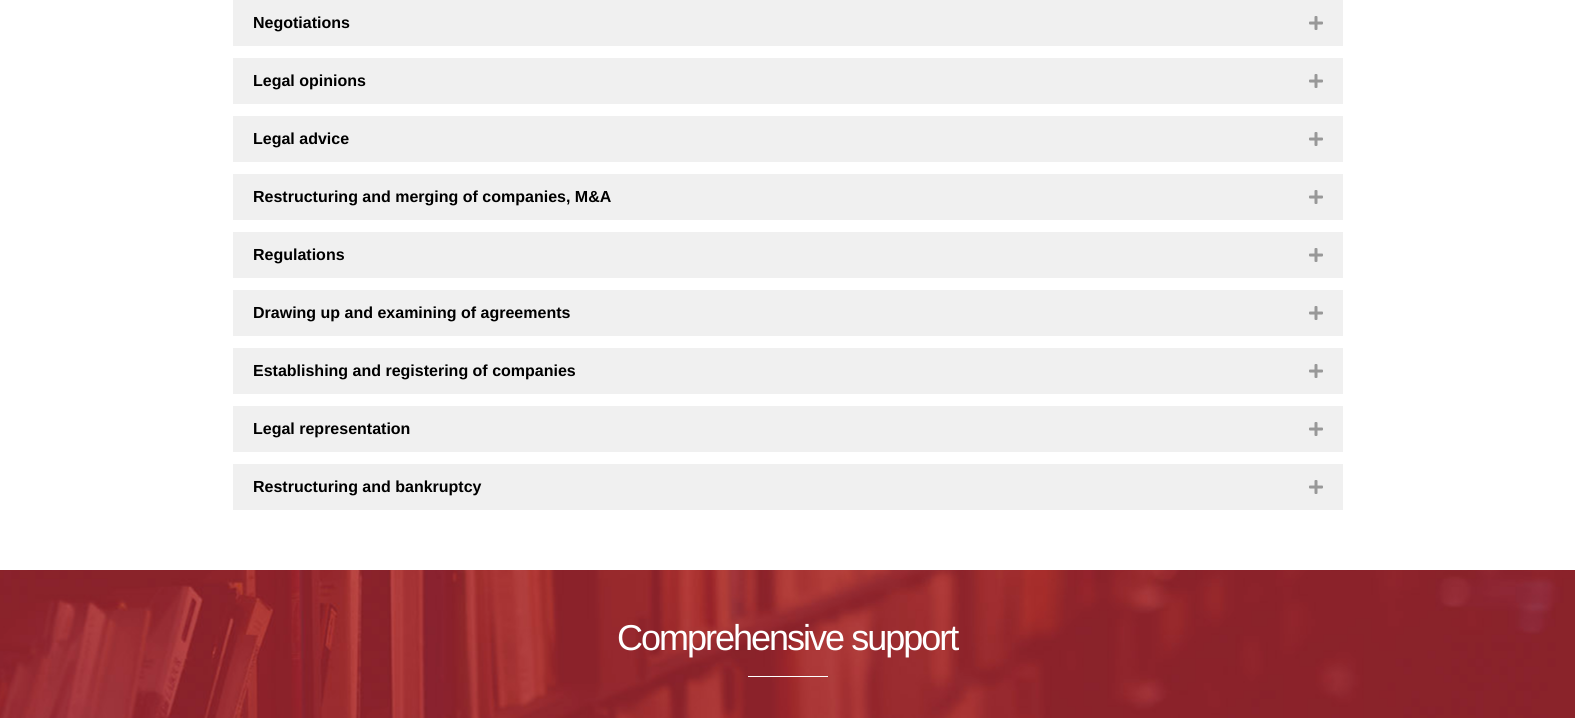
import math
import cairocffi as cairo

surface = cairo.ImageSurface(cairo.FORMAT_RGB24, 1575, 718)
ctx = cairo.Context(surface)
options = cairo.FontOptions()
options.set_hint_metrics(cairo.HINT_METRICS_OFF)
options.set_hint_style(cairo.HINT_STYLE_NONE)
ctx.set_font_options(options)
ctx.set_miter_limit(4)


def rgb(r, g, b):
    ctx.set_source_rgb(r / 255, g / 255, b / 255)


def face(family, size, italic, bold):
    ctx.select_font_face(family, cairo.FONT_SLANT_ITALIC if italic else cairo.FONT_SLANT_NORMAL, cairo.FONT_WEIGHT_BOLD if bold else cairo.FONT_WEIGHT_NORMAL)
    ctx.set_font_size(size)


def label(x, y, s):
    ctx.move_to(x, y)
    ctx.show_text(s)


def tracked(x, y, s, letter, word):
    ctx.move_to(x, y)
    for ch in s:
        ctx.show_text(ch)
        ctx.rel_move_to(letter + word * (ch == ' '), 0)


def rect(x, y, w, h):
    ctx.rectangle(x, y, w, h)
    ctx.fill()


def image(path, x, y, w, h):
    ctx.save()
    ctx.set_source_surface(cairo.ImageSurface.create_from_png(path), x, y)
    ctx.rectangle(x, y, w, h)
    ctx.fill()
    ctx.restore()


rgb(255, 255, 255)
ctx.paint()
rgb(240, 240, 240)
rect(233, 0, 1110, 46)
face('Liberation Sans', 16, 0, 1)
rgb(0, 0, 0)
label(253, 28, 'Negotiations')
image('image0.png', 1309, 16, 14, 14)
rgb(240, 240, 240)
rect(233, 58, 1110, 46)
rgb(0, 0, 0)
label(253, 86, 'Legal opinions')
image('image0.png', 1309, 74, 14, 14)
rgb(240, 240, 240)
rect(233, 116, 1110, 46)
rgb(0, 0, 0)
label(253, 144, 'Legal advice')
image('image0.png', 1309, 132, 14, 14)
rgb(240, 240, 240)
rect(233, 174, 1110, 46)
rgb(0, 0, 0)
label(253, 202, 'Restructuring and merging of companies, M&A')
image('image0.png', 1309, 190, 14, 14)
rgb(240, 240, 240)
rect(233, 232, 1110, 46)
rgb(0, 0, 0)
label(253, 260, 'Regulations')
image('image0.png', 1309, 248, 14, 14)
rgb(240, 240, 240)
rect(233, 290, 1110, 46)
rgb(0, 0, 0)
label(253, 318, 'Drawing up and examining of agreements')
image('image0.png', 1309, 306, 14, 14)
rgb(240, 240, 240)
rect(233, 348, 1110, 46)
rgb(0, 0, 0)
label(253, 376, 'Establishing and registering of companies')
image('image0.png', 1309, 364, 14, 14)
rgb(240, 240, 240)
rect(233, 406, 1110, 46)
rgb(0, 0, 0)
label(253, 434, 'Legal representation')
image('image0.png', 1309, 422, 14, 14)
rgb(240, 240, 240)
rect(233, 464, 1110, 46)
rgb(0, 0, 0)
label(253, 492, 'Restructuring and bankruptcy')
image('image0.png', 1309, 480, 14, 14)
image('image1.png', 0, 570, 1575, 148)
face('Liberation Sans', 36, 0, 0)
rgb(255, 255, 255)
tracked(617, 650, 'Comprehensive support', -2, 0)
rect(748, 676, 80, 1)
surface.write_to_png('render.png')
